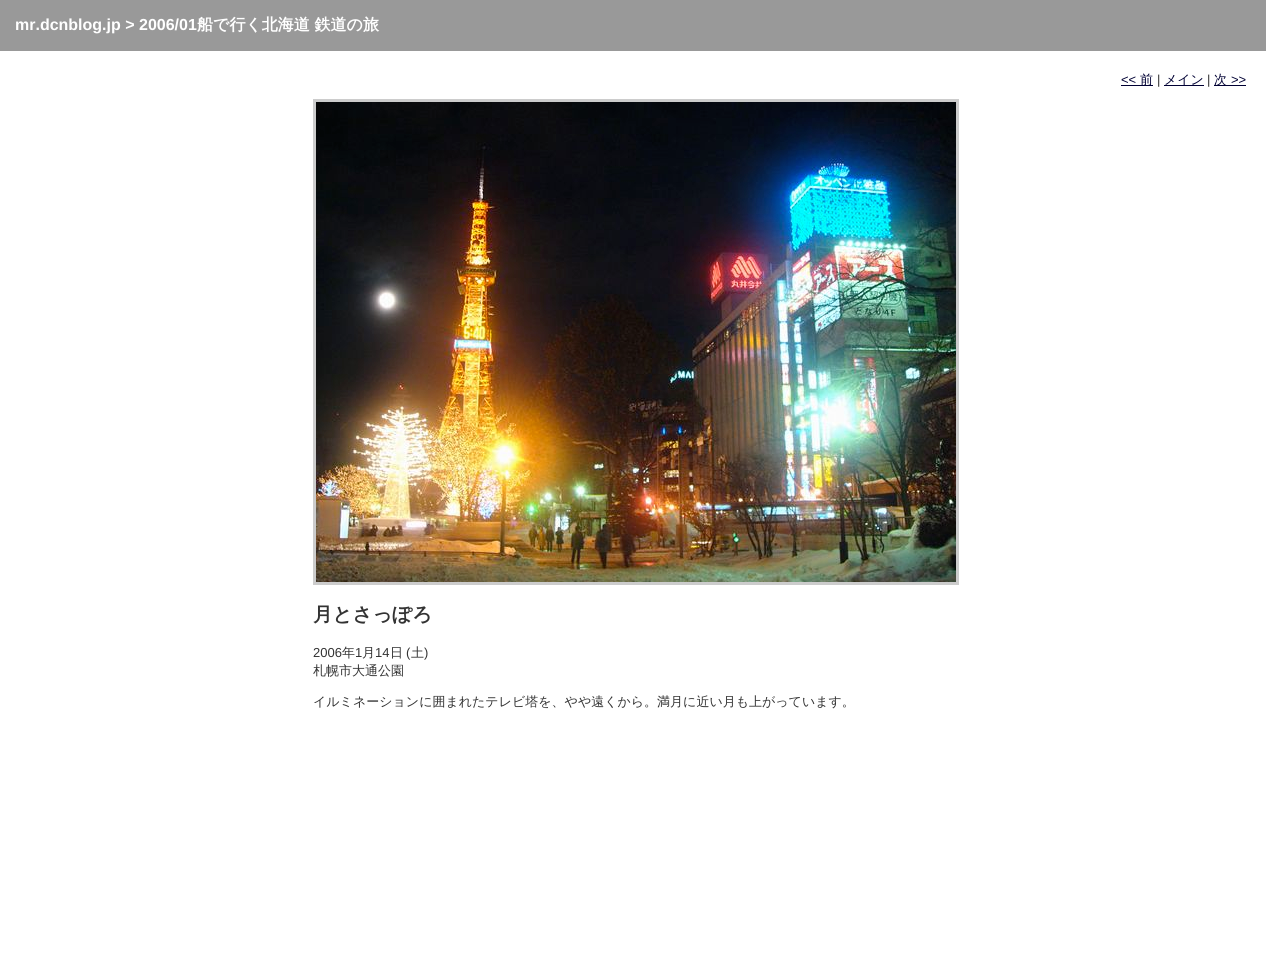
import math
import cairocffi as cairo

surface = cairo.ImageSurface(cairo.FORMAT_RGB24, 1266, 976)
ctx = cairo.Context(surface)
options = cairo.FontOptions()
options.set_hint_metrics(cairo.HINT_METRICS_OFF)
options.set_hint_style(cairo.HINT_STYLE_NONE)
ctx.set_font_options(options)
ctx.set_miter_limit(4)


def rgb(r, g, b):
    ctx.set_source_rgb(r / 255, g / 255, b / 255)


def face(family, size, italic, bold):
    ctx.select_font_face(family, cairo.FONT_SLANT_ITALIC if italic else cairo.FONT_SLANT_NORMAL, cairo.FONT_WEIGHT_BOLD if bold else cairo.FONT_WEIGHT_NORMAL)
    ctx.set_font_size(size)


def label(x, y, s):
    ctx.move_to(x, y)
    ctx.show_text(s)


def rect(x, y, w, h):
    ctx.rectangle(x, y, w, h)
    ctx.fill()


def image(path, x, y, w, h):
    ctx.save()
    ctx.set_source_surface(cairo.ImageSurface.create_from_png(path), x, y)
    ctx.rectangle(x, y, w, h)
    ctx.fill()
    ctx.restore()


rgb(255, 255, 255)
ctx.paint()
rgb(153, 153, 153)
rect(0, 0, 1266, 51)
face('Liberation Sans', 16, 0, 1)
rgb(255, 255, 255)
label(15, 30, 'mr.dcnblog.jp > 2006/01')
face('WenQuanYi Zen Hei', 16, 0, 1)
label(197, 30, '船で行く北海道 鉄道の旅')
face('Liberation Sans', 13, 0, 0)
rgb(0, 0, 51)
label(1121, 84, '<<')
rect(1121, 85, 32, 1)
face('WenQuanYi Zen Hei Medium', 13, 0, 0)
label(1140, 84, '前')
face('Liberation Sans', 13, 0, 0)
rgb(51, 51, 51)
label(1157, 84, '|')
rgb(0, 0, 51)
rect(1164, 85, 40, 1)
face('WenQuanYi Zen Hei Medium', 13, 0, 0)
label(1164, 84, 'メイン')
face('Liberation Sans', 13, 0, 0)
rgb(51, 51, 51)
label(1207, 84, '|')
rgb(0, 0, 51)
rect(1214, 85, 32, 1)
face('WenQuanYi Zen Hei Medium', 13, 0, 0)
label(1214, 84, '次')
face('Liberation Sans', 13, 0, 0)
label(1231, 84, '>>')
ctx.rectangle(314.5, 100.5, 643, 483)
rgb(204, 204, 204)
ctx.set_line_width(3)
ctx.stroke()
image('image0.png', 316, 102, 640, 480)
face('WenQuanYi Zen Hei', 19.5, 0, 1)
rgb(51, 51, 51)
label(313, 621, '月とさっぽろ')
face('Liberation Sans', 13, 0, 0)
label(313, 657, '2006')
face('WenQuanYi Zen Hei Medium', 13, 0, 0)
label(342, 657, '年')
face('Liberation Sans', 13, 0, 0)
label(355, 657, '1')
face('WenQuanYi Zen Hei Medium', 13, 0, 0)
label(362, 657, '月')
face('Liberation Sans', 13, 0, 0)
label(375, 657, '14')
face('WenQuanYi Zen Hei Medium', 13, 0, 0)
label(390, 657, '日')
face('Liberation Sans', 13, 0, 0)
label(406, 657, '(')
face('WenQuanYi Zen Hei Medium', 13, 0, 0)
label(411, 657, '土')
face('Liberation Sans', 13, 0, 0)
label(424, 657, ')')
face('WenQuanYi Zen Hei Medium', 13, 0, 0)
label(313, 675, '札幌市大通公園')
label(313, 706, 'イルミネーションに囲まれたテレビ塔を、やや遠くから。満月に近い月も上がっています。')
surface.write_to_png('render.png')
